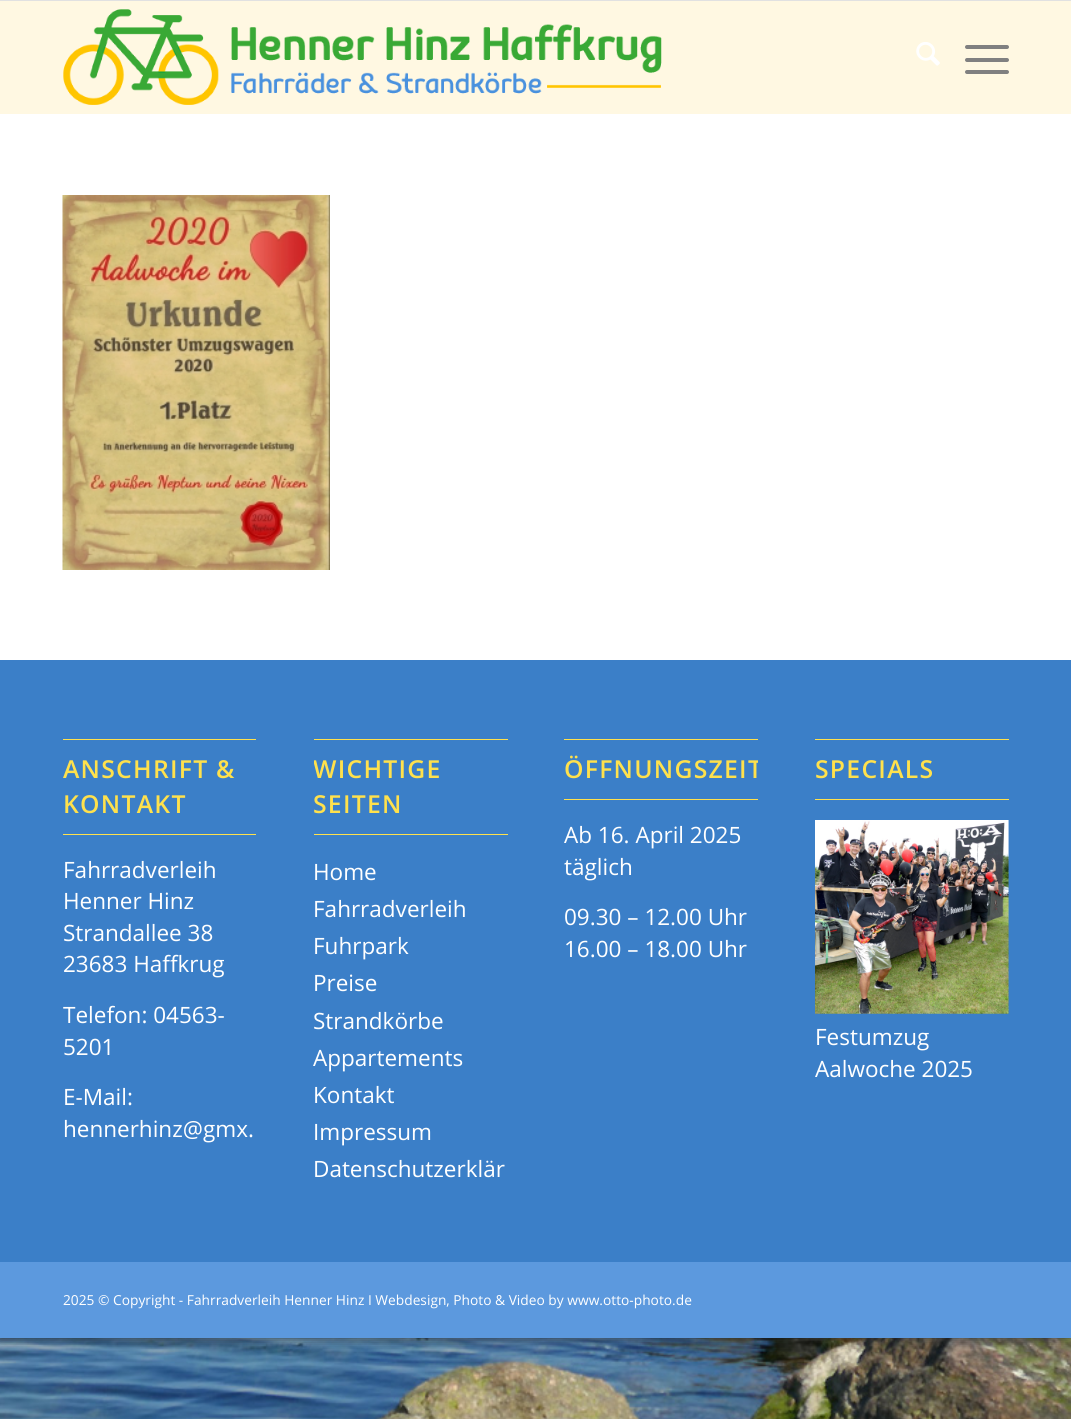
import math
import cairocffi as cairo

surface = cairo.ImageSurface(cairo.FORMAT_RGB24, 1071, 1419)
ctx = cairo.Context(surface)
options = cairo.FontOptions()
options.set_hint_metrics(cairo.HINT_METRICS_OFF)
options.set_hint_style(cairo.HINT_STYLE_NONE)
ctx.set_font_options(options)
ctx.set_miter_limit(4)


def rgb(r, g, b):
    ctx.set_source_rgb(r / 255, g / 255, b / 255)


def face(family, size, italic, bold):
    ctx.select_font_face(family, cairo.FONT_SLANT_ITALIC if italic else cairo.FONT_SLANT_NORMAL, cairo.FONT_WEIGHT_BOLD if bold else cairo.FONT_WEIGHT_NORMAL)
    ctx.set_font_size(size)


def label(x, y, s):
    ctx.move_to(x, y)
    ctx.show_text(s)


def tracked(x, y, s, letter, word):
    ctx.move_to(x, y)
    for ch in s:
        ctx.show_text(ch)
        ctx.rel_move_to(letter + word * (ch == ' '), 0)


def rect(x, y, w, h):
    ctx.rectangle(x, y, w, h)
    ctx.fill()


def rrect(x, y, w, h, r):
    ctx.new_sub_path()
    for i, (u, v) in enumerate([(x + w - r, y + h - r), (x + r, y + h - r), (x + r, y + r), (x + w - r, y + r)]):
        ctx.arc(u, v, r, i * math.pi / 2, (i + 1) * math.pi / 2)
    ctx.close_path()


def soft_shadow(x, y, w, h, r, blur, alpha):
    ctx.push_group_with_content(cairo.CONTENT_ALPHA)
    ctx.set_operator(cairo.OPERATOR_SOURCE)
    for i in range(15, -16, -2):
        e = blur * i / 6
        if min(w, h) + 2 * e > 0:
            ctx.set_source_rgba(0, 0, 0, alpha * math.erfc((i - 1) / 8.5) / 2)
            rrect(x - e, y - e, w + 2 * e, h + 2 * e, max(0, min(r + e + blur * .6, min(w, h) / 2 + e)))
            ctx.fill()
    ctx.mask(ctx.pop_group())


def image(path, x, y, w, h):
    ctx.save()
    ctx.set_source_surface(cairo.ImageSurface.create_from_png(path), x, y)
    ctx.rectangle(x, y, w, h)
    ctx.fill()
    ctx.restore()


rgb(255, 255, 255)
ctx.paint()
image('image4.png', 0, 1338, 1071, 81)
rgb(50, 50, 50)
soft_shadow(0, 0, 1071, 1338, 0, 6, 0.8)
rgb(225, 225, 225)
rect(0, 0, 1071, 1)
rgb(255, 248, 226)
rect(0, 1, 1071, 113)
image('image0.png', 63, 9, 599, 96)
image('image1.png', 916, 42, 24, 24)
rgb(128, 128, 128)
rrect(965, 58, 44, 4, 2)
ctx.fill()
rrect(965, 45, 44, 4, 2)
ctx.fill()
rrect(965, 70, 44, 4, 2)
ctx.fill()
rgb(255, 255, 255)
rect(0, 114, 1071, 546)
image('image2.png', 62, 195, 268, 375)
rgb(59, 127, 200)
rect(0, 660, 1071, 602)
rgb(255, 225, 76)
rect(63, 739, 193, 1)
rect(63, 834, 193, 1)
face('Open Sans SemiBold', 24.75, 0, 0)
tracked(63, 778, 'ANSCHRIFT &', 1.25, 0)
tracked(63, 813, 'KONTAKT', 1.25, 0)
face('Open Sans', 22.5, 0, 0)
rgb(255, 255, 255)
label(63, 878, 'Fahrradverleih')
label(63, 909, 'Henner Hinz')
label(63, 941, 'Strandallee 38')
label(63, 972, '23683 Haffkrug')
label(63, 1023, 'Telefon: 04563-')
label(63, 1055, '5201')
label(63, 1105, 'E-Mail:')
label(63, 1137, 'hennerhinz@gmx.')
rgb(255, 225, 76)
rect(314, 739, 194, 1)
rect(314, 834, 194, 1)
ctx.save()
ctx.rectangle(314, 718, 194, 470)
ctx.clip()
face('Open Sans SemiBold', 24.75, 0, 0)
tracked(313, 778, 'WICHTIGE', 1.25, 0)
ctx.restore()
face('Open Sans SemiBold', 24.75, 0, 0)
tracked(313, 813, 'SEITEN', 1.25, 0)
face('Open Sans', 22.5, 0, 0)
rgb(255, 255, 255)
label(313, 880, 'Home')
label(313, 917, 'Fahrradverleih')
label(313, 954, 'Fuhrpark')
label(313, 991, 'Preise')
label(313, 1029, 'Strandkörbe')
label(313, 1066, 'Appartements')
label(313, 1103, 'Kontakt')
label(313, 1140, 'Impressum')
label(313, 1177, 'Datenschutzerklär')
rgb(255, 225, 76)
rect(564, 739, 194, 1)
rect(564, 799, 194, 1)
ctx.save()
ctx.rectangle(564, 718, 194, 266)
ctx.clip()
face('Open Sans SemiBold', 24.75, 0, 0)
tracked(564, 778, 'ÖFFNUNGSZEIT', 1.25, 0)
ctx.restore()
rgb(255, 255, 255)
label(564, 843, 'Ab 16. April 2025')
label(564, 875, 'täglich')
label(564, 925, '09.30 – 12.00 Uhr')
label(564, 957, '16.00 – 18.00 Uhr')
rgb(255, 225, 76)
rect(815, 739, 194, 1)
rect(815, 799, 194, 1)
face('Open Sans SemiBold', 24.75, 0, 0)
tracked(815, 778, 'SPECIALS', 1.25, 0)
image('image3.png', 815, 820, 194, 194)
face('Open Sans', 22.5, 0, 0)
rgb(255, 255, 255)
label(815, 1045, 'Festumzug')
label(815, 1077, 'Aalwoche 2025')
rgb(92, 153, 222)
rect(0, 1262, 1071, 76)
face('Open Sans', 13.75, 0, 0)
rgb(255, 255, 255)
label(63, 1305, '2025 © Copyright - Fahrradverleih Henner Hinz I Webdesign, Photo & Video by www.otto-photo.de')
surface.write_to_png('render.png')
